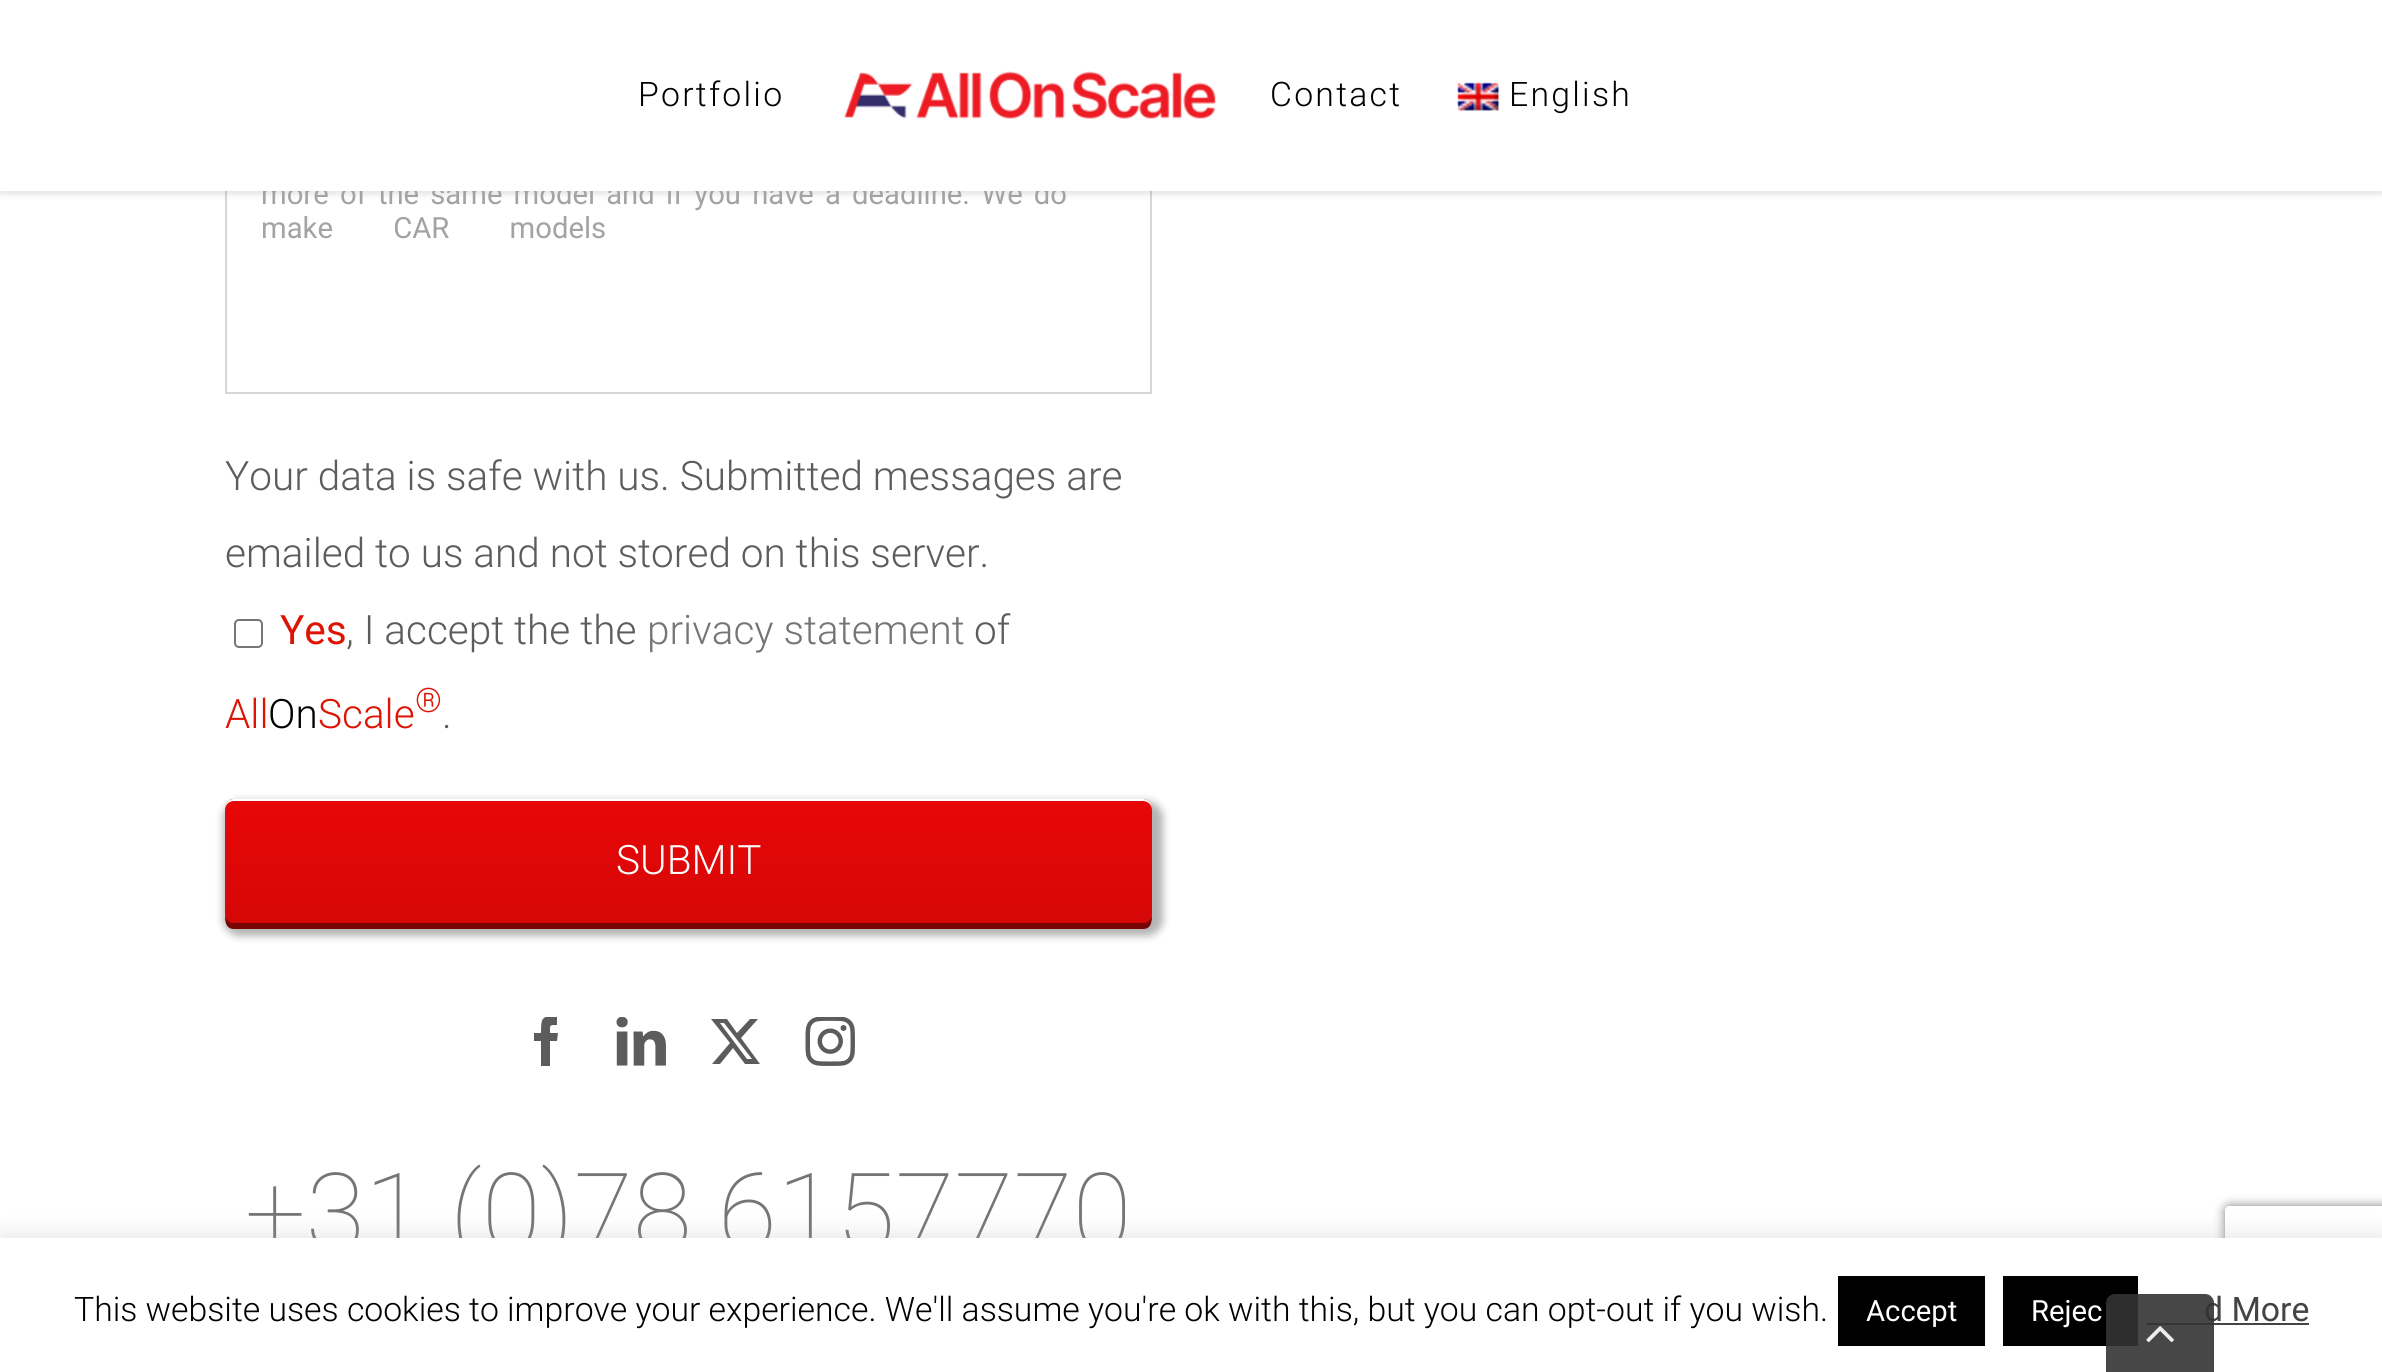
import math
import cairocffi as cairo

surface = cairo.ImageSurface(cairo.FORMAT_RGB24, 2382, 1372)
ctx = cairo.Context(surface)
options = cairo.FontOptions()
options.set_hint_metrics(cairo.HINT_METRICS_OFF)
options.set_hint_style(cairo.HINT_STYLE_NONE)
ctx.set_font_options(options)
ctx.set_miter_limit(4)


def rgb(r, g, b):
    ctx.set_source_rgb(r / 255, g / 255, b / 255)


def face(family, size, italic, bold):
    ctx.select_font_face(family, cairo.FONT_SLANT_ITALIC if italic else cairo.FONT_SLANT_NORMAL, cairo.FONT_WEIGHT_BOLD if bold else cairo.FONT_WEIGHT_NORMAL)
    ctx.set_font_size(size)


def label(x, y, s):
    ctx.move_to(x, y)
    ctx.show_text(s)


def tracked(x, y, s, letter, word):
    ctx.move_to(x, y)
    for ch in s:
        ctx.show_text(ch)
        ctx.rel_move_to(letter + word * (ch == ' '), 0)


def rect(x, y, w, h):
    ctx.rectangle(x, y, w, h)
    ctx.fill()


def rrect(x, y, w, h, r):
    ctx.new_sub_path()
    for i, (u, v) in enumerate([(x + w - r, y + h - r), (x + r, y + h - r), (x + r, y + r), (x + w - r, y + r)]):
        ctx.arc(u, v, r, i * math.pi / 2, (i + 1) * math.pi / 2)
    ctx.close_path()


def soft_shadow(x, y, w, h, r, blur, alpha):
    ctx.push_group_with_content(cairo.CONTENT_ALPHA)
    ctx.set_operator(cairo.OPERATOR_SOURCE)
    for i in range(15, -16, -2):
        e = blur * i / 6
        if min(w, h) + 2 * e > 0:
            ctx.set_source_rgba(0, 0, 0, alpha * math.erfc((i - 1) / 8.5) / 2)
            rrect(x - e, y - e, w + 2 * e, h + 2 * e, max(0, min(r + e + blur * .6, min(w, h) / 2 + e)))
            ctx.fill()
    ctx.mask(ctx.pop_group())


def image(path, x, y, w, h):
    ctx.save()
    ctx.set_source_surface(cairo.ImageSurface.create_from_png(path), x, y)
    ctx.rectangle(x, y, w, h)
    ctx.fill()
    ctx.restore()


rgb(255, 255, 255)
ctx.paint()
ctx.rectangle(226, 57, 925, 336)
rgb(214, 214, 214)
ctx.stroke()
rgb(0, 0, 0)
soft_shadow(0, 2, 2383, 192, 0, 3.5, 0.12)
face('Roboto', 29.25, 0, 0)
rgb(163, 163, 163)
tracked(261, 204, 'more of the same model and if you have a deadline. We do', 0, 3.9)
rgb(255, 255, 255)
rect(0, 0, 2382, 191)
face('Roboto Light', 33.75, 0, 0)
rgb(0, 0, 0)
tracked(638, 106, 'Portfolio', 2.25, 0)
image('image0.png', 844, 71, 372, 48)
tracked(1270, 106, 'Contact', 2.25, 0)
image('image1.png', 1457, 82, 43, 29)
tracked(1509, 106, 'English', 2.25, 0)
face('Roboto', 29.25, 0, 0)
rgb(163, 163, 163)
tracked(261, 238, 'make CAR models', 0, 53)
face('Roboto Light', 40.5, 0, 0)
rgb(92, 92, 92)
label(225, 490, 'Your data is safe with us. Submitted messages are')
label(225, 567, 'emailed to us and not stored on this server.')
rrect(235, 620, 27, 27, 4)
rgb(118, 118, 118)
ctx.stroke()
face('Roboto', 40.5, 0, 0)
rgb(221, 20, 3)
label(280, 644, 'Yes')
face('Roboto Light', 40.5, 0, 0)
rgb(92, 92, 92)
label(346, 644, ', I accept the the')
rgb(117, 117, 117)
label(647, 644, 'privacy statement')
rgb(92, 92, 92)
label(974, 644, 'of')
rgb(221, 20, 3)
label(225, 728, 'All')
rgb(0, 0, 0)
label(268, 728, 'On')
rgb(221, 20, 3)
label(318, 728, 'Scale')
face('Roboto Light', 33.75, 0, 0)
label(415, 712, '®')
face('Roboto Light', 40.5, 0, 0)
rgb(92, 92, 92)
label(442, 728, '.')
rgb(0, 0, 0)
soft_shadow(223, 801, 940, 135, 16, 4, 0.3)
rgb(120, 4, 4)
ctx.new_path()
ctx.move_to(225, 914)
ctx.curve_to(225, 920, 225, 929, 234, 929)
ctx.line_to(1143, 929)
ctx.curve_to(1152, 929, 1152, 920, 1152, 914)
ctx.curve_to(1152, 918, 1148, 922, 1143, 922)
ctx.line_to(234, 922)
ctx.curve_to(229, 922, 225, 918, 225, 914)
ctx.close_path()
ctx.fill()
gradient = cairo.LinearGradient(689, 799, 689, 923)
gradient.add_color_stop_rgba(0, 0.91, 0.027, 0.027, 1)
gradient.add_color_stop_rgba(1, 0.839, 0.027, 0.027, 1)
ctx.set_source(gradient)
rrect(225, 799, 927, 124, 9)
ctx.fill()
rgb(255, 255, 255)
ctx.new_path()
ctx.move_to(234, 801)
ctx.line_to(1143, 801)
ctx.curve_to(1148, 801, 1152, 805, 1152, 810)
ctx.line_to(1152, 808)
ctx.curve_to(1152, 803, 1148, 799, 1143, 799)
ctx.line_to(234, 799)
ctx.curve_to(229, 799, 225, 803, 225, 808)
ctx.line_to(225, 810)
ctx.curve_to(225, 805, 229, 801, 234, 801)
ctx.close_path()
ctx.fill()
label(616, 874, 'SUBMIT')
ctx.save()
ctx.rectangle(225, 1017, 927, 50)
ctx.clip()
rgb(92, 92, 92)
ctx.new_path()
ctx.move_to(550, 1066)
ctx.line_to(541, 1066)
ctx.line_to(541, 1041)
ctx.line_to(534, 1041)
ctx.line_to(534, 1033)
ctx.line_to(541, 1033)
ctx.curve_to(541, 1017, 542, 1016, 557, 1016)
ctx.line_to(557, 1025)
ctx.curve_to(549, 1025, 550, 1025, 550, 1033)
ctx.line_to(558, 1033)
ctx.line_to(557, 1041)
ctx.line_to(550, 1041)
ctx.close_path()
ctx.fill()
ctx.restore()
image('image2.png', 616, 1017, 50, 49)
rgb(92, 92, 92)
ctx.new_path()
ctx.move_to(750, 1019)
ctx.line_to(758, 1019)
ctx.line_to(741, 1038)
ctx.line_to(760, 1064)
ctx.line_to(745, 1064)
ctx.line_to(733, 1048)
ctx.line_to(720, 1064)
ctx.line_to(712, 1064)
ctx.line_to(730, 1043)
ctx.line_to(711, 1019)
ctx.line_to(727, 1019)
ctx.line_to(737, 1033)
ctx.close_path()
ctx.move_to(747, 1059)
ctx.line_to(752, 1059)
ctx.line_to(724, 1023)
ctx.line_to(720, 1023)
ctx.close_path()
ctx.fill()
image('image3.png', 805, 1017, 50, 49)
face('Roboto Thin', 108, 0, 0)
rgb(117, 117, 117)
label(245, 1250, '+31 (0)78 6157770')
ctx.save()
ctx.set_fill_rule(cairo.FILL_RULE_EVEN_ODD)
ctx.new_path()
ctx.move_to(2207, 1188)
ctx.line_to(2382, 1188)
ctx.line_to(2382, 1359)
ctx.line_to(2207, 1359)
ctx.close_path()
ctx.move_to(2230, 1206)
ctx.line_to(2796, 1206)
ctx.curve_to(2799, 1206, 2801, 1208, 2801, 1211)
ctx.line_to(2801, 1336)
ctx.curve_to(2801, 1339, 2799, 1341, 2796, 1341)
ctx.line_to(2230, 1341)
ctx.curve_to(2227, 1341, 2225, 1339, 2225, 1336)
ctx.line_to(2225, 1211)
ctx.curve_to(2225, 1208, 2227, 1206, 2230, 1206)
ctx.close_path()
ctx.clip()
rgb(128, 128, 128)
soft_shadow(2225, 1206, 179, 135, 5, 5.5, 1)
ctx.restore()
rgb(172, 171, 171)
soft_shadow(0, 1235, 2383, 135, 0, 11, 0.3)
rgb(255, 255, 255)
rect(0, 1238, 2382, 134)
rgb(0, 0, 0)
rect(2003, 1276, 135, 70)
face('Roboto', 33.75, 0, 0)
rgb(68, 68, 68)
label(2204, 1321, 'd More')
rect(2147, 1323, 162, 2)
ctx.set_source_rgba(0.2, 0.2, 0.2, 0.9)
ctx.new_path()
ctx.move_to(2115, 1294)
ctx.line_to(2205, 1294)
ctx.curve_to(2210, 1294, 2214, 1298, 2214, 1303)
ctx.line_to(2214, 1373)
ctx.line_to(2106, 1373)
ctx.line_to(2106, 1303)
ctx.curve_to(2106, 1298, 2110, 1294, 2115, 1294)
ctx.close_path()
ctx.fill()
image('image4.png', 2146, 1326, 28, 17)
face('Roboto Light', 33.75, 0, 0)
rgb(0, 0, 0)
label(74, 1321, 'This website uses cookies to improve your experience. We\'ll assume you\'re ok with this, but you can opt-out if you wish.')
rect(1838, 1276, 147, 70)
face('Roboto', 29.25, 0, 0)
rgb(255, 255, 255)
label(1866, 1321, 'Accept')
label(2031, 1321, 'Rejec')
surface.write_to_png('render.png')
